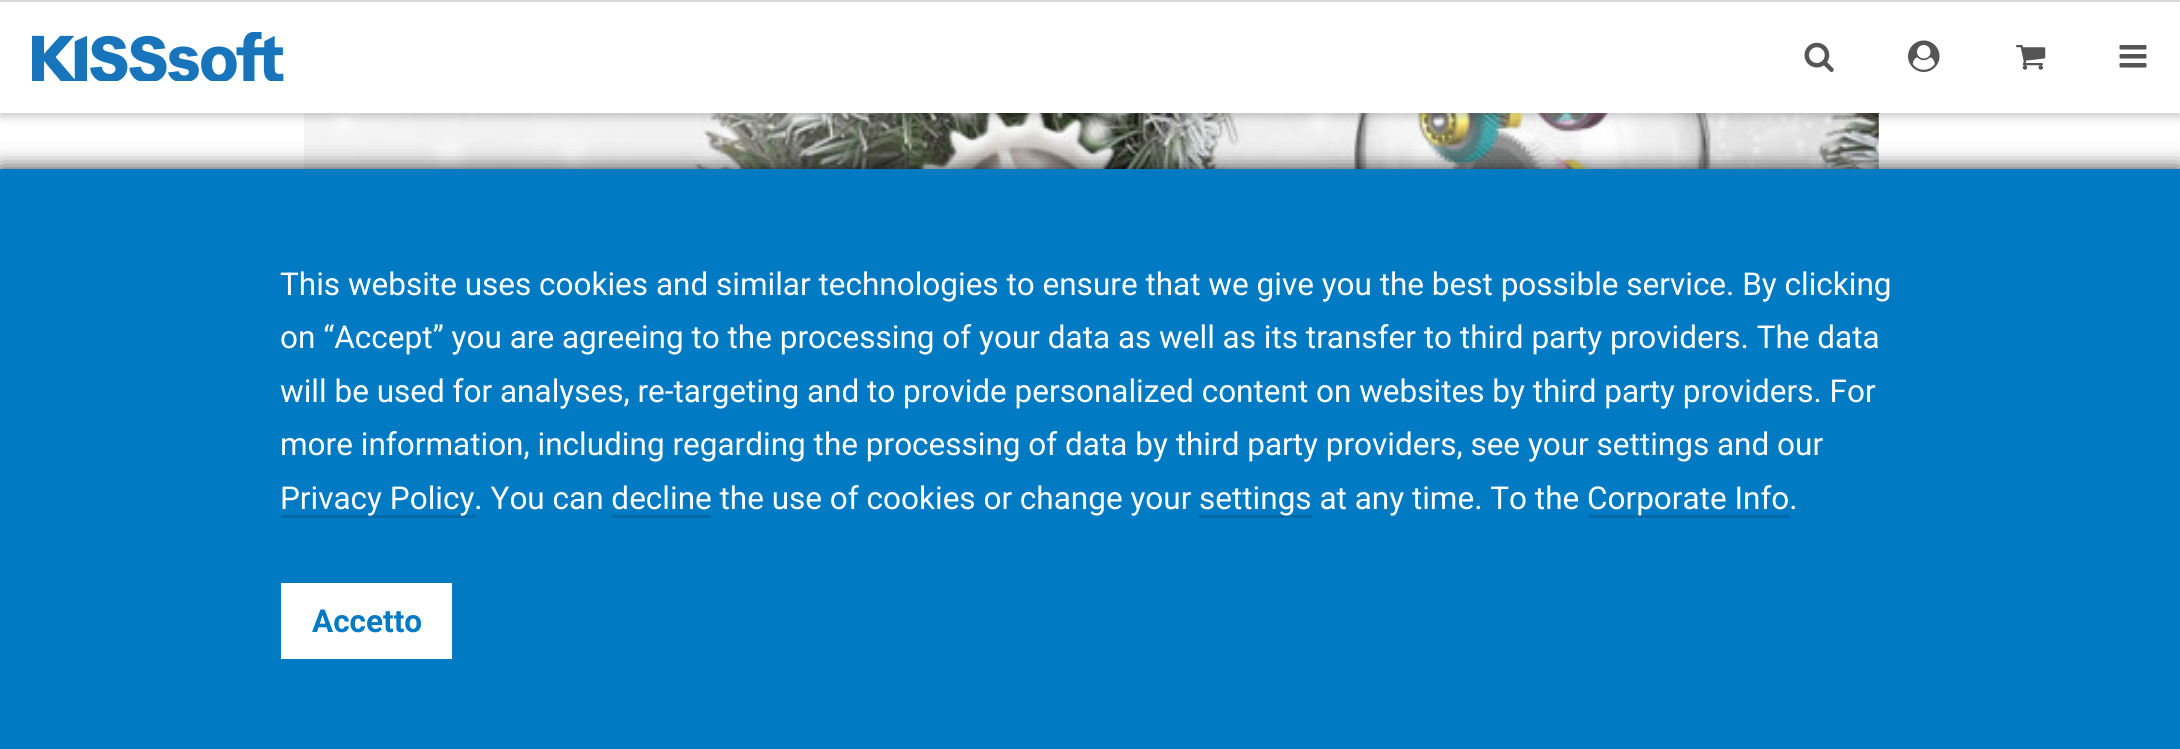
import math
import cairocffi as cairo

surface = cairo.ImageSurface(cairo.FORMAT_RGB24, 2180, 749)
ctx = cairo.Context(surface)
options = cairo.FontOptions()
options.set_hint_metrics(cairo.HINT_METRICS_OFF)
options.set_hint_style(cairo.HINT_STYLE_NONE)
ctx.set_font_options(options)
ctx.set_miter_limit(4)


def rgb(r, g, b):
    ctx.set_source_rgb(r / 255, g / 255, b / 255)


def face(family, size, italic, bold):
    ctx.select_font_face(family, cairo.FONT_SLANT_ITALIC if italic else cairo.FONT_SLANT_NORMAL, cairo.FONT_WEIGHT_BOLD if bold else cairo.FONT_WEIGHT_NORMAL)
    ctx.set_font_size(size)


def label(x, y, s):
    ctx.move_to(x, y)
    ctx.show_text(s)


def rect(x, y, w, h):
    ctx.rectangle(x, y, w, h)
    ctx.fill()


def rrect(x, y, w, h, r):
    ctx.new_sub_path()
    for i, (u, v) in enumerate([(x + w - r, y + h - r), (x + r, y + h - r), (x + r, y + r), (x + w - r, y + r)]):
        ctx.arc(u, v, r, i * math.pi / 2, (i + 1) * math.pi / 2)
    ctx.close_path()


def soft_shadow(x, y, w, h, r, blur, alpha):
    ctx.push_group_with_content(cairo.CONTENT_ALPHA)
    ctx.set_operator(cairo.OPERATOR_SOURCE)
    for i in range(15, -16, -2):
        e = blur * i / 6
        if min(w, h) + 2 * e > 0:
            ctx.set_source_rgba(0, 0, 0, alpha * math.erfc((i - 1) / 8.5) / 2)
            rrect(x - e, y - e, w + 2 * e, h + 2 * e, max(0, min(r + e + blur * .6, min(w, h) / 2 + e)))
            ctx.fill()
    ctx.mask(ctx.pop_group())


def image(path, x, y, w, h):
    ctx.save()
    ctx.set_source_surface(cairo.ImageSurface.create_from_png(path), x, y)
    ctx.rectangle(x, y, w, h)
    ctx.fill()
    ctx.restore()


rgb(255, 255, 255)
ctx.paint()
image('image5.png', 304, 113, 1575, 56)
rgb(0, 0, 0)
soft_shadow(0, 5, 2180, 112, 0, 4.5, 0.2)
rgb(255, 255, 255)
rect(0, 2, 2180, 111)
image('image0.png', 32, 32, 252, 49)
image('image1.png', 1804, 42, 30, 30)
image('image2.png', 1908, 40, 32, 32)
image('image3.png', 2016, 45, 30, 25)
image('image4.png', 2119, 45, 28, 23)
rgb(217, 217, 217)
rect(0, 0, 2180, 2)
rgb(0, 0, 0)
soft_shadow(0, 169, 2180, 580, 0, 11, 0.8)
rgb(0, 122, 195)
rect(0, 169, 2180, 580)
face('Roboto', 31.5, 0, 0)
rgb(255, 255, 255)
label(280, 295, 'This website uses cookies and similar technologies to ensure that we give you the best possible service. By clicking')
label(280, 348, 'on “Accept” you are agreeing to the processing of your data as well as its transfer to third party providers. The data')
label(280, 402, 'will be used for analyses, re-targeting and to provide personalized content on websites by third party providers. For')
label(280, 455, 'more information, including regarding the processing of data by third party providers, see your settings and our')
rgb(0, 104, 166)
ctx.new_path()
ctx.move_to(281, 482)
ctx.line_to(281, 518)
ctx.line_to(475, 518)
ctx.line_to(475, 482)
ctx.line_to(475, 515)
ctx.line_to(281, 515)
ctx.close_path()
ctx.fill()
rgb(255, 255, 255)
label(280, 509, 'Privacy Policy. You can decline the use of cookies or change your')
rgb(0, 104, 166)
ctx.new_path()
ctx.move_to(1199, 482)
ctx.line_to(1199, 518)
ctx.line_to(1312, 518)
ctx.line_to(1312, 482)
ctx.line_to(1312, 515)
ctx.line_to(1199, 515)
ctx.close_path()
ctx.fill()
rgb(255, 255, 255)
label(1199, 509, 'settings at any time. To the')
rgb(0, 104, 166)
ctx.new_path()
ctx.move_to(1589, 515)
ctx.line_to(1589, 518)
ctx.line_to(1789, 518)
ctx.line_to(1789, 482)
ctx.line_to(1789, 515)
ctx.close_path()
ctx.fill()
rgb(255, 255, 255)
label(1587, 509, 'Corporate Info.')
rgb(0, 104, 166)
rect(612, 515, 99, 3)
rgb(255, 255, 255)
rect(281, 583, 171, 76)
face('Roboto', 31.5, 0, 1)
rgb(0, 122, 195)
label(312, 632, 'Accetto')
surface.write_to_png('render.png')
